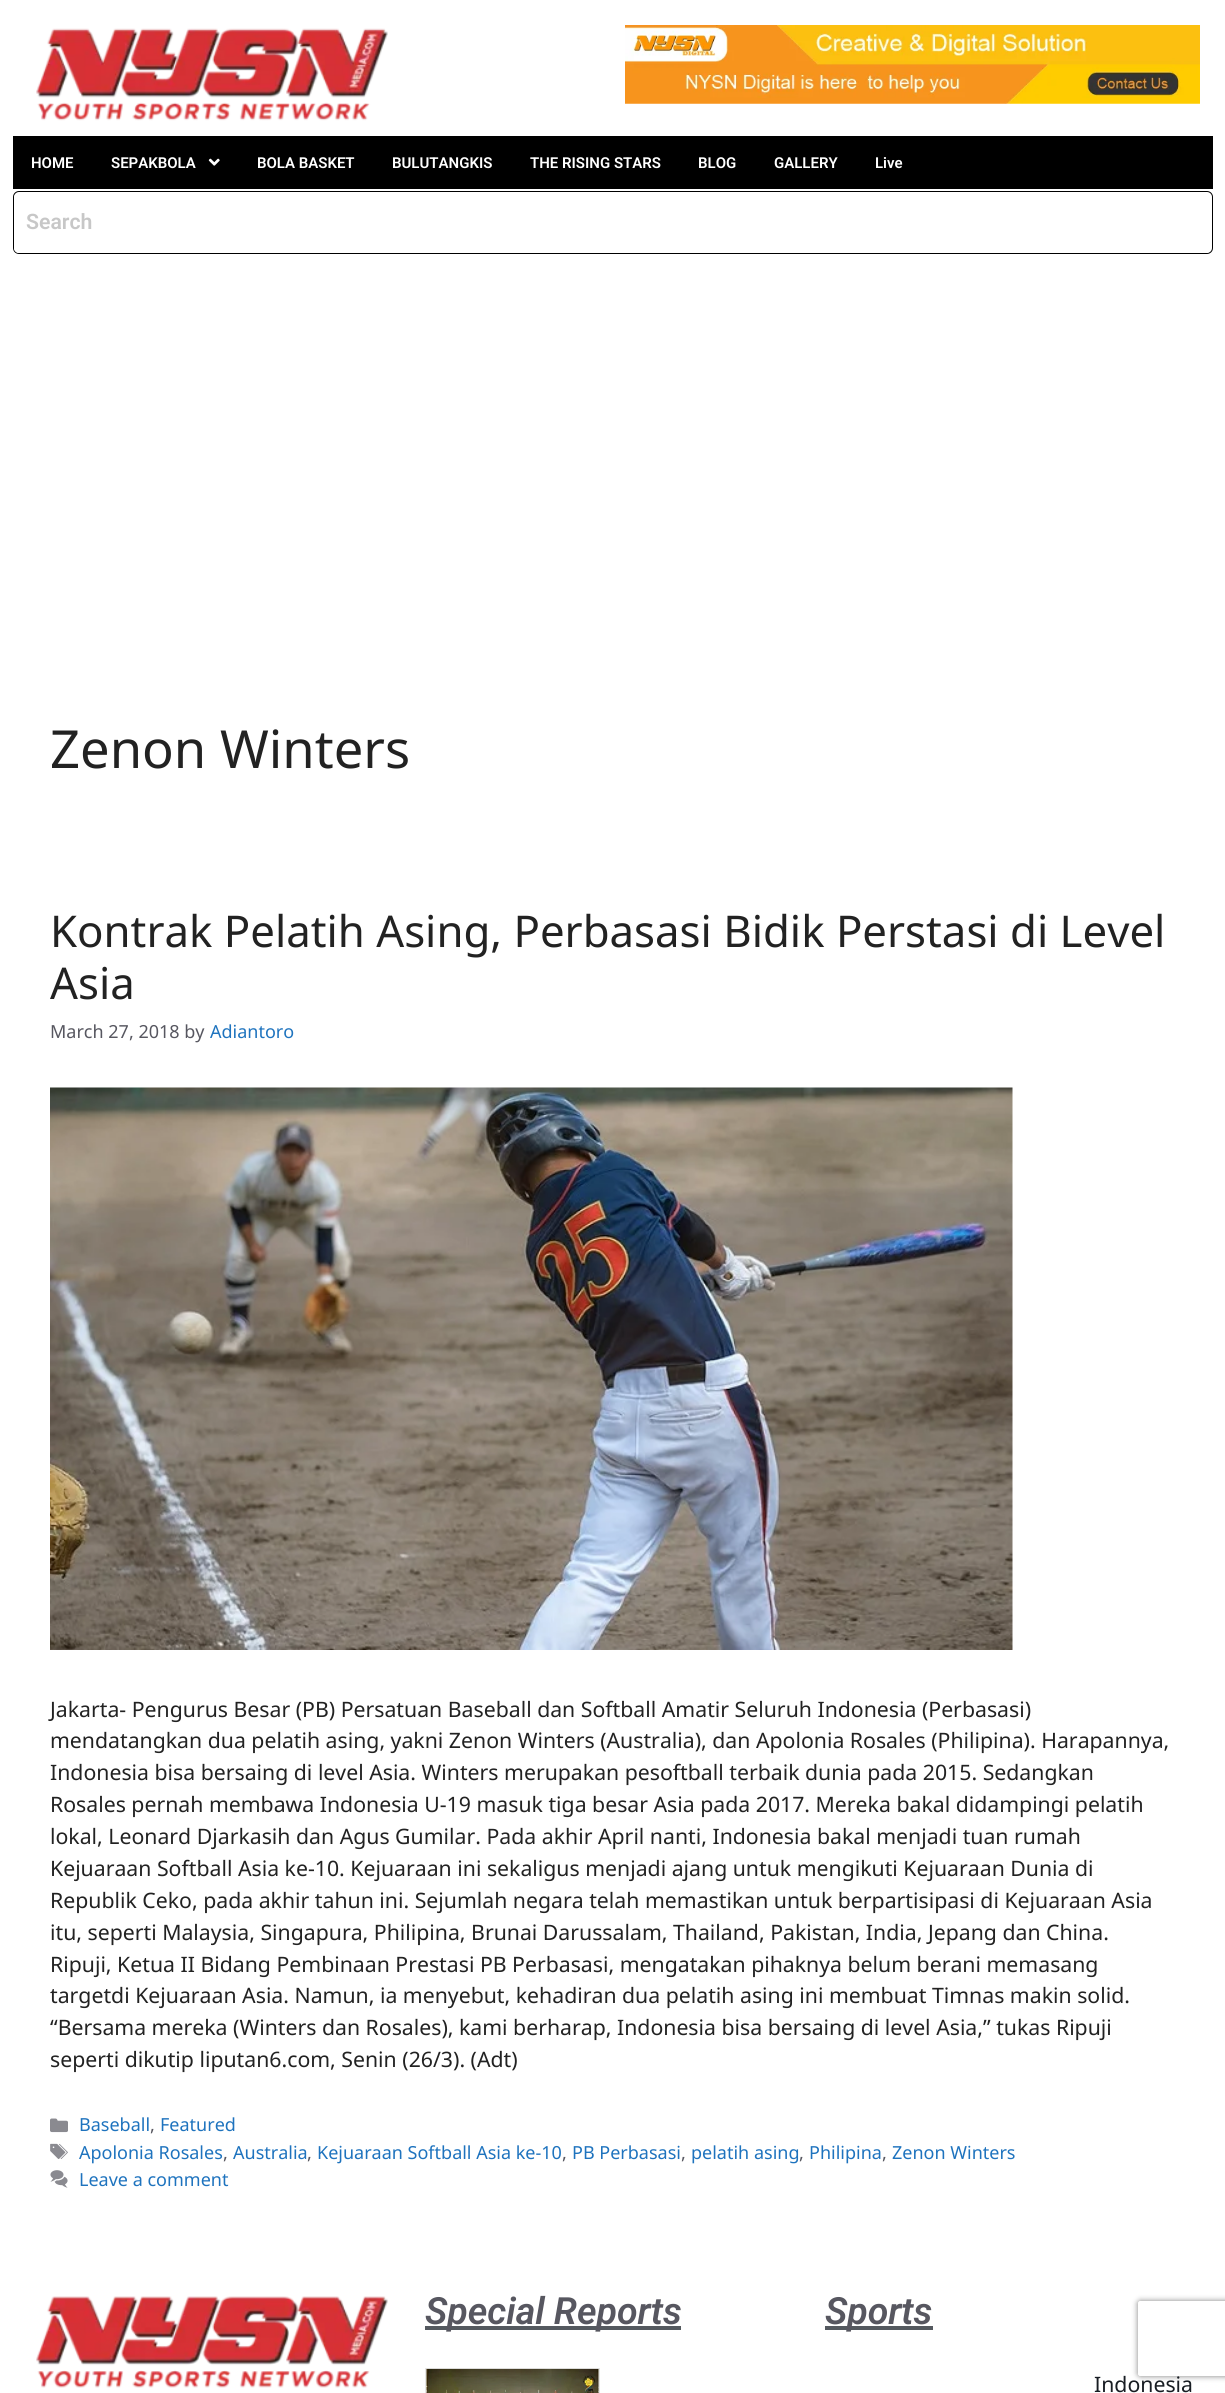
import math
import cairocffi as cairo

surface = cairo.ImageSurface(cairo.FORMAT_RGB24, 1225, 2393)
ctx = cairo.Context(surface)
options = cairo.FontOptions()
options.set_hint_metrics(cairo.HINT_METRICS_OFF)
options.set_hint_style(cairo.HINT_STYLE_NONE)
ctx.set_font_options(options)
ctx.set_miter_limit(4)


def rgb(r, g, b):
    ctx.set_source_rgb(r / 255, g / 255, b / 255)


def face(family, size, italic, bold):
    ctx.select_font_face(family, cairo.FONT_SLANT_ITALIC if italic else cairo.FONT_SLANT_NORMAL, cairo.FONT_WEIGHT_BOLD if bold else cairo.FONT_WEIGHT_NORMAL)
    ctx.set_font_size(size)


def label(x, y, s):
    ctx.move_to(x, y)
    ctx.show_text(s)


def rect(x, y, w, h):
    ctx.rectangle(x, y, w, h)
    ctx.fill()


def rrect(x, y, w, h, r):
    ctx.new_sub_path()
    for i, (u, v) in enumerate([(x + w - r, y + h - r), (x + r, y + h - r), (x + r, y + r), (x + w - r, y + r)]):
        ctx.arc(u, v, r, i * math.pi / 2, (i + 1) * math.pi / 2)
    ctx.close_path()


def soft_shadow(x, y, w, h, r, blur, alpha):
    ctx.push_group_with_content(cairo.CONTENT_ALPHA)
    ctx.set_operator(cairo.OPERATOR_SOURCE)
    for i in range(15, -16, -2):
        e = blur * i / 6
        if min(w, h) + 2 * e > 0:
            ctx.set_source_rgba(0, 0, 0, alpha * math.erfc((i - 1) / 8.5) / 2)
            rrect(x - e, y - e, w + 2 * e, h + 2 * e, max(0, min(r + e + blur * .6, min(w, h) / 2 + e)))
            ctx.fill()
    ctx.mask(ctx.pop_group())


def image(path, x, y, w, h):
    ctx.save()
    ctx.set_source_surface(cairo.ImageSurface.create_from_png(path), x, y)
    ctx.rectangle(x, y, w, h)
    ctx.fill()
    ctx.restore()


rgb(255, 255, 255)
ctx.paint()
image('image0.png', 36, 28, 352, 93)
image('image1.png', 625, 25, 575, 79)
rgb(0, 0, 0)
rect(13, 136, 1200, 53)
face('Roboto SemiBold', 15, 0, 0)
rgb(255, 255, 255)
label(31, 168, 'HOME')
label(111, 168, 'SEPAKBOLA')
image('image2.png', 208, 158, 12, 8)
label(257, 168, 'BOLA BASKET')
label(392, 168, 'BULUTANGKIS')
label(530, 168, 'THE RISING STARS')
label(698, 168, 'BLOG')
label(774, 168, 'GALLERY')
label(875, 168, 'Live')
rrect(13.5, 191.5, 1199, 62, 5.5)
rgb(0, 0, 0)
ctx.set_line_width(1)
ctx.stroke()
rgb(255, 255, 255)
rrect(14, 193, 1197, 60, 5)
ctx.fill()
face('Roboto SemiBold', 21.25, 0, 0)
rgb(199, 199, 199)
label(26, 229, 'Search')
face('Noto Sans', 52.5, 0, 0)
rgb(34, 34, 34)
label(50, 768, 'Zenon Winters')
face('Noto Sans', 43.75, 0, 0)
label(50, 947, 'Kontrak Pelatih Asing, Perbasasi Bidik Perstasi di Level')
label(50, 999, 'Asia')
face('Noto Sans', 18, 0, 0)
rgb(87, 87, 96)
label(50, 1038, 'March 27, 2018 by')
rgb(30, 115, 190)
label(210, 1038, 'Adiantoro')
image('image3.png', 50, 1087, 963, 563)
face('Noto Sans', 21.25, 0, 0)
rgb(34, 34, 34)
label(50, 1717, 'Jakarta- Pengurus Besar (PB) Persatuan Baseball dan Softball Amatir Seluruh Indonesia (Perbasasi)')
label(50, 1748, 'mendatangkan dua pelatih asing, yakni Zenon Winters (Australia), dan Apolonia Rosales (Philipina). Harapannya,')
label(50, 1780, 'Indonesia bisa bersaing di level Asia. Winters merupakan pesoftball terbaik dunia pada 2015. Sedangkan')
label(50, 1812, 'Rosales pernah membawa Indonesia U-19 masuk tiga besar Asia pada 2017. Mereka bakal didampingi pelatih')
label(50, 1844, 'lokal, Leonard Djarkasih dan Agus Gumilar. Pada akhir April nanti, Indonesia bakal menjadi tuan rumah')
label(50, 1876, 'Kejuaraan Softball Asia ke-10. Kejuaraan ini sekaligus menjadi ajang untuk mengikuti Kejuaraan Dunia di')
label(50, 1908, 'Republik Ceko, pada akhir tahun ini. Sejumlah negara telah memastikan untuk berpartisipasi di Kejuaraan Asia')
label(50, 1940, 'itu, seperti Malaysia, Singapura, Philipina, Brunai Darussalam, Thailand, Pakistan, India, Jepang dan China.')
label(50, 1972, 'Ripuji, Ketua II Bidang Pembinaan Prestasi PB Perbasasi, mengatakan pihaknya belum berani memasang')
label(50, 2003, 'targetdi Kejuaraan Asia. Namun, ia menyebut, kehadiran dua pelatih asing ini membuat Timnas makin solid.')
label(50, 2035, '“Bersama mereka (Winters dan Rosales), kami berharap, Indonesia bisa bersaing di level Asia,” tukas Ripuji')
label(50, 2067, 'seperti dikutip liputan6.com, Senin (26/3). (Adt)')
image('image4.png', 50, 2118, 18, 15)
face('Noto Sans', 18, 0, 0)
rgb(30, 115, 190)
label(79, 2131, 'Baseball')
rgb(87, 87, 96)
label(150, 2131, ',')
rgb(30, 115, 190)
label(160, 2131, 'Featured')
image('image5.png', 50, 2143, 18, 16)
label(79, 2159, 'Apolonia Rosales')
rgb(87, 87, 96)
label(223, 2159, ',')
rgb(30, 115, 190)
label(233, 2159, 'Australia')
rgb(87, 87, 96)
label(307, 2159, ',')
rgb(30, 115, 190)
label(317, 2159, 'Kejuaraan Softball Asia ke-10')
rgb(87, 87, 96)
label(562, 2159, ',')
rgb(30, 115, 190)
label(572, 2159, 'PB Perbasasi')
rgb(87, 87, 96)
label(681, 2159, ',')
rgb(30, 115, 190)
label(691, 2159, 'pelatih asing')
rgb(87, 87, 96)
label(799, 2159, ',')
rgb(30, 115, 190)
label(809, 2159, 'Philipina')
rgb(87, 87, 96)
label(882, 2159, ',')
rgb(30, 115, 190)
label(892, 2159, 'Zenon Winters')
image('image6.png', 50, 2170, 18, 18)
label(79, 2186, 'Leave a comment')
ctx.save()
ctx.set_fill_rule(cairo.FILL_RULE_EVEN_ODD)
ctx.new_path()
ctx.move_to(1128, 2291)
ctx.line_to(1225, 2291)
ctx.line_to(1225, 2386)
ctx.line_to(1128, 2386)
ctx.close_path()
ctx.move_to(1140.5, 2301)
ctx.line_to(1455.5, 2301)
ctx.curve_to(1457, 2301, 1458, 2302, 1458, 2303.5)
ctx.line_to(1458, 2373.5)
ctx.curve_to(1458, 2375, 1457, 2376, 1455.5, 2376)
ctx.line_to(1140.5, 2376)
ctx.curve_to(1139, 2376, 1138, 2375, 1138, 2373.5)
ctx.line_to(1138, 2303.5)
ctx.curve_to(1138, 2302, 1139, 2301, 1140.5, 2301)
ctx.close_path()
ctx.clip()
rgb(128, 128, 128)
soft_shadow(1138, 2301, 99, 75, 2.5, 3, 1)
ctx.restore()
image('image7.png', 36, 2296, 352, 92)
rgb(84, 89, 95)
rect(425, 2326, 256, 4)
face('Roboto SemiBold', 37.5, 1, 0)
rgb(87, 87, 96)
label(425, 2324, 'Special Reports')
ctx.rectangle(425.5, 2368.5, 174, 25)
rgb(230, 230, 230)
ctx.stroke()
image('image8.png', 426, 2368, 173, 25)
rgb(84, 89, 95)
rect(825, 2326, 108, 4)
rgb(87, 87, 96)
label(825, 2324, 'Sports')
face('Noto Sans', 21.25, 0, 0)
rgb(24, 29, 35)
label(1094, 2392, 'Indonesia')
surface.write_to_png('render.png')
